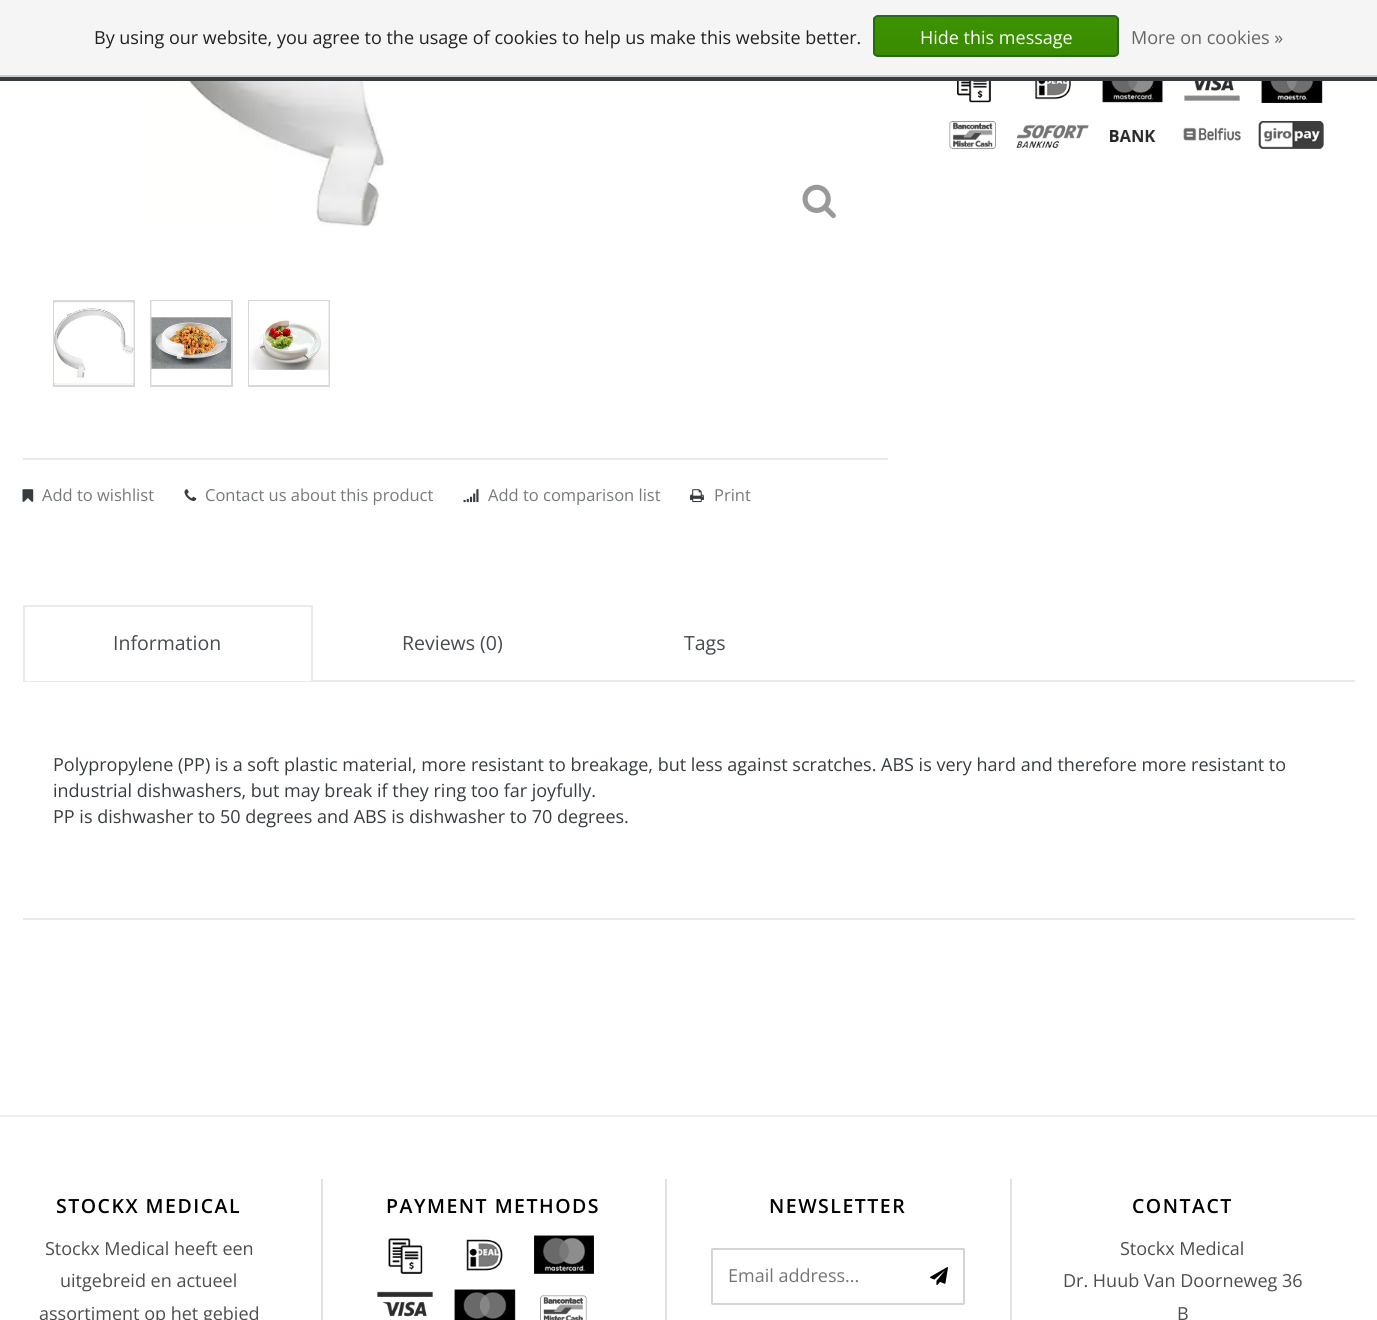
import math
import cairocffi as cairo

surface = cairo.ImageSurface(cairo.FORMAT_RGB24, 1377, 1320)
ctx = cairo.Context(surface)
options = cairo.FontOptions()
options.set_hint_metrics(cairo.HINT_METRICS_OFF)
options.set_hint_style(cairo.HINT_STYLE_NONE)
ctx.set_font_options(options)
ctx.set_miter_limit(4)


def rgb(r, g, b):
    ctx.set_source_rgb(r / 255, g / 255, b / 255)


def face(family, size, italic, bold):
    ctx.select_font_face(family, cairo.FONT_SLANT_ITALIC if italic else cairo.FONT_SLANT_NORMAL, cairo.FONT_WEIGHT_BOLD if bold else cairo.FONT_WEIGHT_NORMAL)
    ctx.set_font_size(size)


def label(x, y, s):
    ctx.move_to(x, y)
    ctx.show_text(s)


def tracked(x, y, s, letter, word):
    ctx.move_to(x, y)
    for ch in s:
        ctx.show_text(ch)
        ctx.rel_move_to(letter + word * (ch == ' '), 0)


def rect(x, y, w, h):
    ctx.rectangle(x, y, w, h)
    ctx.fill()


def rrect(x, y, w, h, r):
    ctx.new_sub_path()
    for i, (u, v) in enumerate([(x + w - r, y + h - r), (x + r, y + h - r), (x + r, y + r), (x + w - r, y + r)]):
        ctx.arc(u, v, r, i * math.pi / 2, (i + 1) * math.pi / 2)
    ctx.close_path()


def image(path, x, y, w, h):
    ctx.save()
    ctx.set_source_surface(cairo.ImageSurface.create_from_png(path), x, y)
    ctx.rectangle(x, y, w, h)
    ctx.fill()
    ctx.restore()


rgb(255, 255, 255)
ctx.paint()
rgb(245, 245, 245)
rect(0, 0, 1377, 75)
rgb(204, 204, 204)
rect(0, 75, 1377, 2)
face('Open Sans', 18, 0, 0)
rgb(34, 34, 34)
label(94, 44, 'By using our website, you agree to the usage of cookies to help us make this website better.')
ctx.save()
rrect(873, 15, 246, 42, 5)
ctx.clip()
gradient = cairo.LinearGradient(996, 16, 996, 56)
gradient.add_color_stop_rgba(0, 0.235, 0.576, 0, 1)
gradient.add_color_stop_rgba(1, 0.224, 0.541, 0, 1)
ctx.set_source(gradient)
rect(873, 17, 246, 39)
ctx.restore()
rrect(874, 16, 244, 40, 4)
rgb(41, 105, 29)
ctx.stroke()
rgb(255, 255, 255)
label(920, 44, 'Hide this message')
rgb(102, 102, 102)
label(1131, 44, 'More on cookies »')
rgb(54, 60, 63)
rect(0, 77, 1377, 4)
image('image0.png', 957, 81, 34, 22)
image('image1.png', 1035, 81, 36, 20)
image('image2.png', 1102, 81, 61, 22)
image('image3.png', 1184, 81, 56, 20)
image('image4.png', 1261, 81, 62, 22)
image('image5.png', 949, 121, 47, 28)
image('image6.png', 1016, 124, 73, 24)
image('image7.png', 1110, 130, 46, 12)
image('image8.png', 1183, 127, 58, 14)
image('image9.png', 1258, 121, 66, 28)
image('image10.png', 148, 81, 630, 146)
image('image11.png', 802, 184, 34, 35)
rgb(247, 247, 247)
ctx.rectangle(54, 301, 80, 85)
ctx.fill_preserve()
rgb(216, 216, 216)
ctx.stroke()
image('image12.png', 54, 303, 80, 80)
ctx.rectangle(151, 301, 81, 85)
ctx.stroke()
image('image13.png', 151, 301, 80, 84)
ctx.rectangle(249, 301, 80, 85)
ctx.stroke()
image('image14.png', 249, 301, 80, 84)
rgb(234, 234, 234)
rect(23, 458, 865, 2)
image('image15.png', 22, 489, 12, 13)
face('Open Sans', 16.5, 0, 0)
rgb(117, 122, 124)
label(42, 501, 'Add to wishlist')
image('image16.png', 184, 489, 13, 12)
label(205, 501, 'Contact us about this product')
image('image17.png', 463, 489, 16, 14)
label(488, 501, 'Add to comparison list')
image('image18.png', 690, 489, 14, 14)
label(714, 501, 'Print')
rgb(234, 234, 234)
rect(23, 680, 1332, 2)
rgb(255, 255, 255)
rect(25, 680, 286, 1)
rgb(234, 234, 234)
rect(23, 605, 289, 2)
rect(311, 605, 2, 76)
rect(23, 605, 2, 76)
face('Open Sans', 19.5, 0, 0)
rgb(70, 75, 78)
label(113, 650, 'Information')
label(402, 650, 'Reviews (0)')
label(684, 650, 'Tags')
rgb(234, 234, 234)
rect(23, 918, 1332, 2)
face('Open Sans', 18, 0, 0)
rgb(54, 60, 63)
label(53, 771, 'Polypropylene (PP) is a soft plastic material, more resistant to breakage, but less against scratches. ABS is very hard and therefore more resistant to')
label(53, 797, 'industrial dishwashers, but may break if they ring too far joyfully.')
label(53, 823, 'PP is dishwasher to 50 degrees and ABS is dishwasher to 70 degrees.')
rgb(238, 238, 238)
rect(0, 1115, 1377, 2)
rgb(225, 225, 225)
rect(321, 1179, 2, 141)
face('Open Sans SemiBold', 19.5, 0, 0)
rgb(0, 0, 0)
tracked(56, 1213, 'STOCKX MEDICAL', 1.5, 0)
face('Open Sans', 18, 0, 0)
rgb(77, 77, 77)
label(45, 1255, 'Stockx Medical heeft een')
label(60, 1287, 'uitgebreid en actueel')
label(39, 1320, 'assortiment op het gebied')
rgb(225, 225, 225)
rect(665, 1179, 2, 141)
face('Open Sans SemiBold', 19.5, 0, 0)
rgb(0, 0, 0)
tracked(386, 1213, 'PAYMENT METHODS', 1.5, 0)
image('image19.png', 388, 1238, 35, 36)
image('image20.png', 466, 1237, 38, 36)
image('image21.png', 534, 1235, 60, 39)
image('image22.png', 377, 1291, 56, 26)
image('image23.png', 454, 1289, 62, 31)
image('image24.png', 540, 1295, 47, 25)
rgb(225, 225, 225)
rect(1010, 1179, 2, 141)
rgb(0, 0, 0)
tracked(769, 1213, 'NEWSLETTER', 1.5, 0)
rrect(712, 1249, 252, 55, 0.5)
rgb(212, 212, 212)
ctx.stroke()
face('Open Sans', 18, 0, 0)
rgb(117, 117, 117)
label(728, 1282, 'Email address...')
image('image25.png', 930, 1267, 18, 18)
face('Open Sans SemiBold', 19.5, 0, 0)
rgb(0, 0, 0)
tracked(1132, 1213, 'CONTACT', 1.5, 0)
face('Open Sans', 18, 0, 0)
rgb(77, 77, 77)
label(1120, 1255, 'Stockx Medical')
label(1063, 1287, 'Dr. Huub Van Doorneweg 36')
label(1177, 1320, 'B')
surface.write_to_png('render.png')
